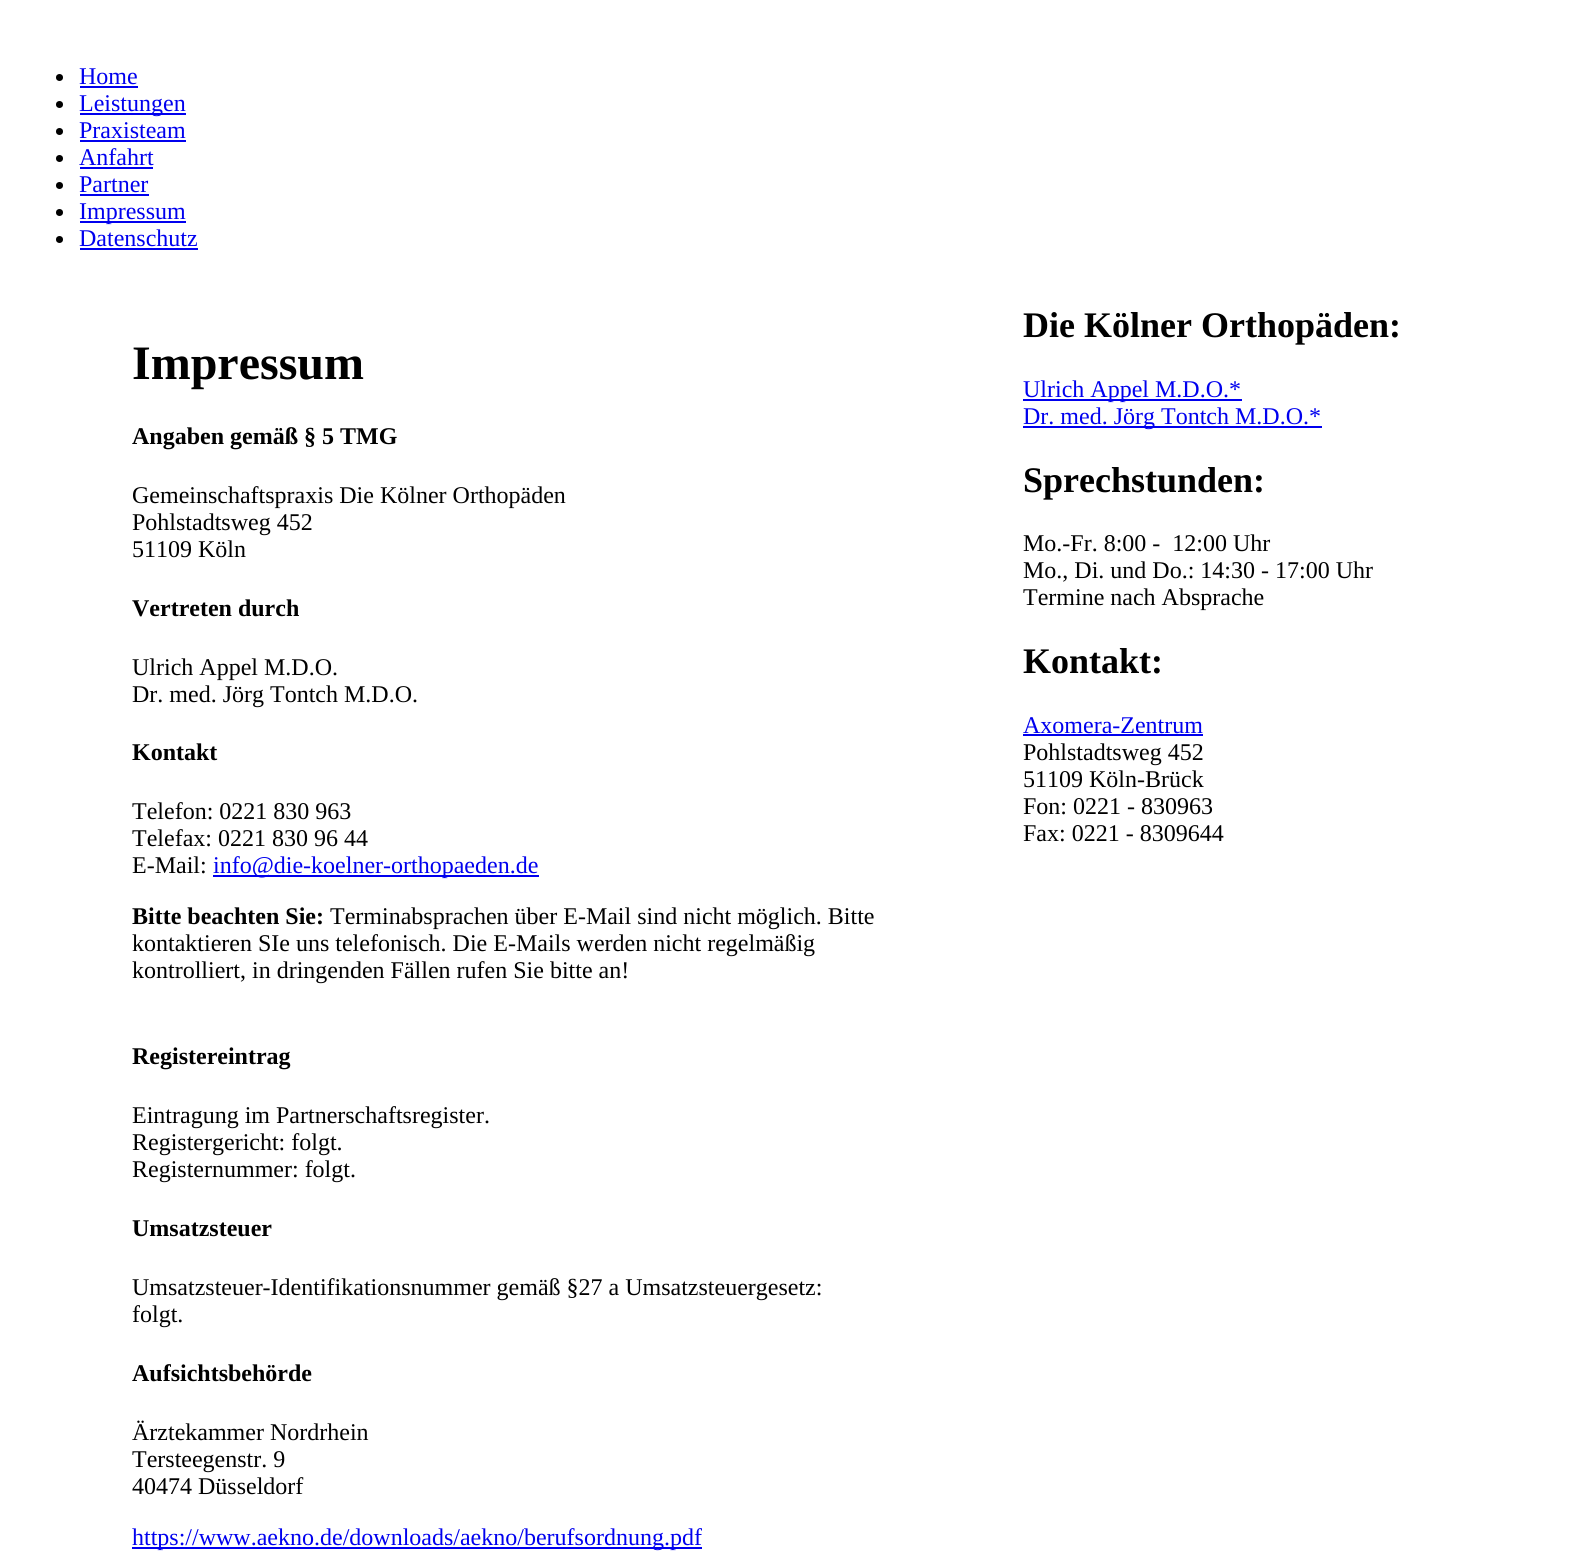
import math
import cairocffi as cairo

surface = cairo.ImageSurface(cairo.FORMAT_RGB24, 1573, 1561)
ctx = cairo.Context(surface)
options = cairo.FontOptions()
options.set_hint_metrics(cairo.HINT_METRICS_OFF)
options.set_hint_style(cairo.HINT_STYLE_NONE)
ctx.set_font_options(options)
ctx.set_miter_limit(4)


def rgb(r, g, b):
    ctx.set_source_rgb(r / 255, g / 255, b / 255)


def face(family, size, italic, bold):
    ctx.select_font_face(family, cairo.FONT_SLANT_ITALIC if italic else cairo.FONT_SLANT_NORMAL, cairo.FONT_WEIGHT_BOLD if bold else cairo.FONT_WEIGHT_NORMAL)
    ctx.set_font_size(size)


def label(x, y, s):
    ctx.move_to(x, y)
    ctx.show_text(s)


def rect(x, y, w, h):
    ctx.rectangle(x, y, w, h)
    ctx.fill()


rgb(255, 255, 255)
ctx.paint()
rgb(0, 0, 0)
ctx.arc(59.5, 77.5, 3.5, 0, 2 * math.pi)
ctx.fill()
face('Liberation Serif', 24, 0, 0)
rgb(0, 0, 238)
label(79, 84, 'Home')
rect(80, 86, 58, 2)
rgb(0, 0, 0)
ctx.new_path()
ctx.arc(59.5, 104.5, 3.5, 0, 2 * math.pi)
ctx.fill()
rgb(0, 0, 238)
rect(80, 113, 106, 2)
label(79, 111, 'Leistungen')
rgb(0, 0, 0)
ctx.new_path()
ctx.arc(59.5, 131.5, 3.5, 0, 2 * math.pi)
ctx.fill()
rgb(0, 0, 238)
label(79, 138, 'Praxisteam')
rect(80, 140, 106, 2)
rgb(0, 0, 0)
ctx.new_path()
ctx.arc(59.5, 158.5, 3.5, 0, 2 * math.pi)
ctx.fill()
rgb(0, 0, 238)
label(79, 165, 'Anfahrt')
rect(80, 167, 73, 2)
rgb(0, 0, 0)
ctx.new_path()
ctx.arc(59.5, 185.5, 3.5, 0, 2 * math.pi)
ctx.fill()
rgb(0, 0, 238)
label(79, 192, 'Partner')
rect(80, 194, 69, 2)
rgb(0, 0, 0)
ctx.new_path()
ctx.arc(59.5, 212.5, 3.5, 0, 2 * math.pi)
ctx.fill()
rgb(0, 0, 238)
rect(80, 221, 106, 2)
label(79, 219, 'Impressum')
rgb(0, 0, 0)
ctx.new_path()
ctx.arc(59.5, 239.5, 3.5, 0, 2 * math.pi)
ctx.fill()
rgb(0, 0, 238)
label(79, 246, 'Datenschutz')
rect(80, 248, 118, 2)
face('Liberation Serif', 48, 0, 1)
rgb(0, 0, 0)
label(132, 379, 'Impressum')
face('Liberation Serif', 24, 0, 1)
label(132, 444, 'Angaben gemäß § 5 TMG')
face('Liberation Serif', 24, 0, 0)
label(132, 503, 'Gemeinschaftspraxis Die Kölner Orthopäden')
label(132, 530, 'Pohlstadtsweg 452')
label(132, 557, '51109 Köln')
face('Liberation Serif', 24, 0, 1)
label(132, 616, 'Vertreten durch')
face('Liberation Serif', 24, 0, 0)
label(132, 675, 'Ulrich Appel M.D.O.')
label(132, 702, 'Dr. med. Jörg Tontch M.D.O.')
face('Liberation Serif', 24, 0, 1)
label(132, 760, 'Kontakt')
face('Liberation Serif', 24, 0, 0)
label(132, 819, 'Telefon: 0221 830 963')
label(132, 846, 'Telefax: 0221 830 96 44')
label(132, 873, 'E-Mail:')
rgb(0, 0, 238)
rect(213, 875, 326, 2)
label(213, 873, 'info@die-koelner-orthopaeden.de')
face('Liberation Serif', 24, 0, 1)
rgb(0, 0, 0)
label(132, 924, 'Bitte beachten Sie:')
face('Liberation Serif', 24, 0, 0)
label(330, 924, 'Terminabsprachen über E-Mail sind nicht möglich. Bitte')
label(132, 951, 'kontaktieren SIe uns telefonisch. Die E-Mails werden nicht regelmäßig')
label(132, 978, 'kontrolliert, in dringenden Fällen rufen Sie bitte an!')
face('Liberation Serif', 24, 0, 1)
label(132, 1064, 'Registereintrag')
face('Liberation Serif', 24, 0, 0)
label(132, 1123, 'Eintragung im Partnerschaftsregister.')
label(132, 1150, 'Registergericht: folgt.')
label(132, 1177, 'Registernummer: folgt.')
face('Liberation Serif', 24, 0, 1)
label(132, 1236, 'Umsatzsteuer')
face('Liberation Serif', 24, 0, 0)
label(132, 1295, 'Umsatzsteuer-Identifikationsnummer gemäß §27 a Umsatzsteuergesetz:')
label(132, 1322, 'folgt.')
face('Liberation Serif', 24, 0, 1)
label(132, 1381, 'Aufsichtsbehörde')
face('Liberation Serif', 24, 0, 0)
label(132, 1440, 'Ärztekammer Nordrhein')
label(132, 1467, 'Tersteegenstr. 9')
label(132, 1494, '40474 Düsseldorf')
rgb(0, 0, 238)
rect(132, 1547, 570, 2)
label(132, 1545, 'https://www.aekno.de/downloads/aekno/berufsordnung.pdf')
face('Liberation Serif', 36, 0, 1)
rgb(0, 0, 0)
label(1023, 337, 'Die Kölner Orthopäden:')
rgb(0, 0, 238)
rect(1023, 399, 219, 2)
face('Liberation Serif', 24, 0, 0)
label(1023, 397, 'Ulrich Appel M.D.O.*')
rect(1023, 426, 299, 2)
label(1023, 424, 'Dr. med. Jörg Tontch M.D.O.*')
face('Liberation Serif', 36, 0, 1)
rgb(0, 0, 0)
label(1023, 492, 'Sprechstunden:')
face('Liberation Serif', 24, 0, 0)
label(1023, 551, 'Mo.-Fr. 8:00 -  12:00 Uhr')
label(1023, 578, 'Mo., Di. und Do.: 14:30 - 17:00 Uhr')
label(1023, 605, 'Termine nach Absprache')
face('Liberation Serif', 36, 0, 1)
label(1023, 673, 'Kontakt:')
face('Liberation Serif', 24, 0, 0)
rgb(0, 0, 238)
label(1023, 733, 'Axomera-Zentrum')
rect(1023, 734, 180, 2)
rgb(0, 0, 0)
label(1023, 760, 'Pohlstadtsweg 452')
label(1023, 787, '51109 Köln-Brück')
label(1023, 814, 'Fon: 0221 - 830963')
label(1023, 841, 'Fax: 0221 - 8309644')
surface.write_to_png('render.png')
